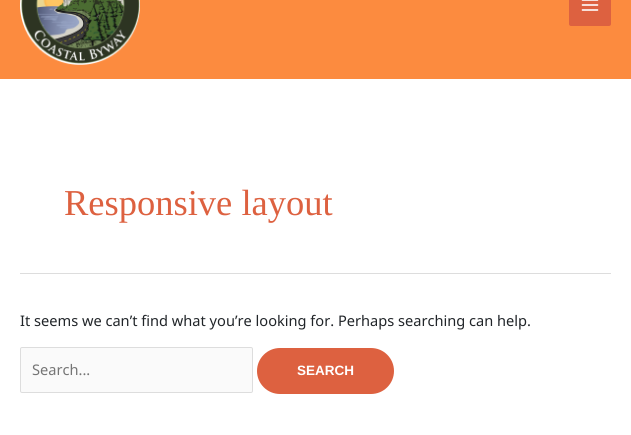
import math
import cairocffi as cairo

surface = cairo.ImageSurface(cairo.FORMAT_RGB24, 631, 435)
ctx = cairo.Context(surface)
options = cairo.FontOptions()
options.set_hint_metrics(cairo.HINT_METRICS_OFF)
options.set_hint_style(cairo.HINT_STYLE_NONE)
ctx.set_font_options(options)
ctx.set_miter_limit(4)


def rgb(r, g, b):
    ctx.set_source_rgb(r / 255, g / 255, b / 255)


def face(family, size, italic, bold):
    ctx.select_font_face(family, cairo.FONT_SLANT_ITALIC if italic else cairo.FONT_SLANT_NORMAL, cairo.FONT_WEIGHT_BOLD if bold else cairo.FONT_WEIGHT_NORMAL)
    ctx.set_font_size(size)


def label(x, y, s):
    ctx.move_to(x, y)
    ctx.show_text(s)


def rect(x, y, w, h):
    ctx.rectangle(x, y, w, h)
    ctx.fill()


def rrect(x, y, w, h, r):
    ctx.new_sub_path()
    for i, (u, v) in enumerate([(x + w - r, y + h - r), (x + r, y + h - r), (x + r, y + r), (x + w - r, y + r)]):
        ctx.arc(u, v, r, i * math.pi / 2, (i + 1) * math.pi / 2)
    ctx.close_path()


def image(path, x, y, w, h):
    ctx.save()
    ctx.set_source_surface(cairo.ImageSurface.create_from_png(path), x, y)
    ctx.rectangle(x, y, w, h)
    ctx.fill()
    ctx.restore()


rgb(255, 255, 255)
ctx.paint()
rgb(252, 139, 63)
rect(0, 0, 631, 79)
image('image0.png', 20, 0, 120, 65)
rgb(221, 97, 64)
rrect(569, -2, 42, 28, 2)
ctx.fill()
image('image1.png', 581, 0, 18, 11)
rgb(221, 221, 221)
rect(20, 273, 591, 1)
face('Liberation Serif', 36.5, 0, 0)
rgb(221, 97, 64)
label(64, 215, 'Responsive layout')
face('Noto Sans', 14.6, 0, 0)
rgb(33, 37, 41)
label(20, 326, 'It seems we can’t find what you’re looking for. Perhaps searching can help.')
rgb(250, 250, 250)
rrect(20.5, 347.5, 232, 45, 1.5)
ctx.fill_preserve()
rgb(221, 221, 221)
ctx.set_line_width(1)
ctx.stroke()
rgb(117, 117, 117)
label(32, 375, 'Search...')
rgb(221, 97, 64)
rrect(257, 348, 137, 46, 23)
ctx.fill()
face('Liberation Sans', 13.5, 0, 1)
rgb(255, 255, 255)
label(297, 375, 'SEARCH')
surface.write_to_png('render.png')
